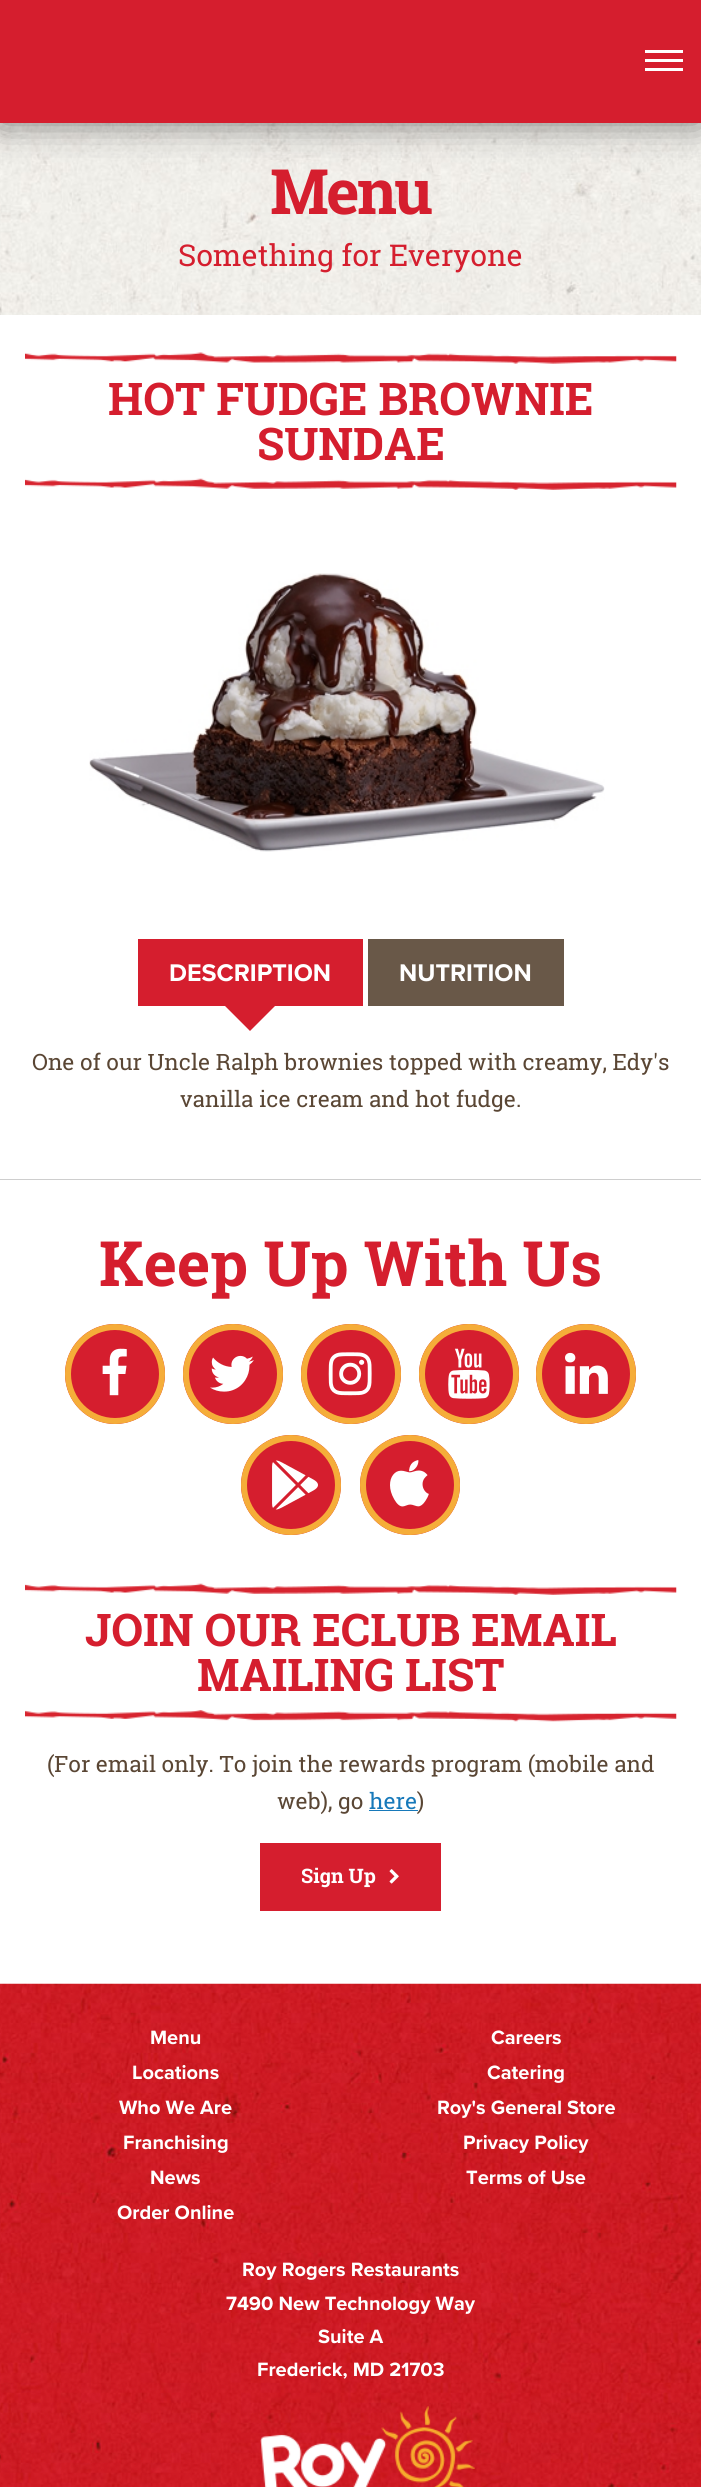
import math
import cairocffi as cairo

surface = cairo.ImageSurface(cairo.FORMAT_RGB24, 701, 2487)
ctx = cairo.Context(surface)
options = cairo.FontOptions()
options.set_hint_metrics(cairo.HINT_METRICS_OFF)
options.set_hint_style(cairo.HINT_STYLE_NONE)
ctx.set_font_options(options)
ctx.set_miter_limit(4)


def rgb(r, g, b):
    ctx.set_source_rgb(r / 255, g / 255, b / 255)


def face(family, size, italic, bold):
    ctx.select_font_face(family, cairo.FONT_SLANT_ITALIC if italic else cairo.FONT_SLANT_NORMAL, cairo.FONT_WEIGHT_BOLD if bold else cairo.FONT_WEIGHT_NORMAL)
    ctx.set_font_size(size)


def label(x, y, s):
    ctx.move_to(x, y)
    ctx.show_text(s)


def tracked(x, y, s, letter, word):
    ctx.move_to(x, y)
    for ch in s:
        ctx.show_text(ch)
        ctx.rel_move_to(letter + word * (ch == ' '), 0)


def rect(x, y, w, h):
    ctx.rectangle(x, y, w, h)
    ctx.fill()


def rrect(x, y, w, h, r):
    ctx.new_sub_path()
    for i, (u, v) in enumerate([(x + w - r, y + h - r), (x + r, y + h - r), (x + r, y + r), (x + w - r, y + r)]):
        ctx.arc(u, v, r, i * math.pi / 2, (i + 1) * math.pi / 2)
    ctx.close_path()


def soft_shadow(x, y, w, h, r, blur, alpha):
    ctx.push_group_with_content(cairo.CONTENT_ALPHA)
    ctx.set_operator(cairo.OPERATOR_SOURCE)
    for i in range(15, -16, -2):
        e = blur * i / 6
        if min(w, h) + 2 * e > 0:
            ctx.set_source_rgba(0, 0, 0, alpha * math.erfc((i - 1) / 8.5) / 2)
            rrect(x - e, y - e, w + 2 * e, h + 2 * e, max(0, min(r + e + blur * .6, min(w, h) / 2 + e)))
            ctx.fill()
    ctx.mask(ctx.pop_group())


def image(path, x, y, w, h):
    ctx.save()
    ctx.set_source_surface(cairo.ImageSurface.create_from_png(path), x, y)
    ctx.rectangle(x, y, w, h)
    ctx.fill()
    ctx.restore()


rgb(255, 255, 255)
ctx.paint()
image('image0.png', 0, 123, 701, 192)
rgb(0, 0, 0)
soft_shadow(0, 0, 701, 123, 0, 19, 0.5)
rgb(213, 30, 46)
rect(0, 0, 701, 123)
rgb(255, 255, 255)
rect(645, 68, 38, 3)
rect(645, 59, 38, 3)
rect(645, 50, 38, 3)
face('Roboto Slab', 62.5, 0, 1)
rgb(213, 30, 46)
tracked(270, 214, 'Menu', -2.5, 0)
face('Roboto Slab', 30, 0, 0)
label(178, 266, 'Something for Everyone')
image('image1.png', 25, 352, 652, 12)
face('Roboto Slab', 45, 0, 1)
label(108, 415, 'HOT FUDGE BROWNIE')
label(257, 460, 'SUNDAE')
image('image2.png', 25, 478, 652, 12)
image('image3.png', 89, 573, 516, 279)
rect(138, 939, 225, 67)
face('Proxima Nova', 25, 0, 1)
rgb(255, 255, 255)
label(169, 981, 'DESCRIPTION')
rgb(213, 30, 46)
ctx.new_path()
ctx.move_to(225, 1006)
ctx.line_to(275, 1006)
ctx.line_to(250, 1031)
ctx.close_path()
ctx.fill()
rgb(105, 88, 72)
rect(368, 939, 196, 67)
rgb(255, 255, 255)
label(399, 981, 'NUTRITION')
face('Roboto Slab', 22.5, 0, 0)
rgb(90, 70, 52)
label(32, 1070, 'One of our Uncle Ralph brownies topped with creamy, Edy\'s')
label(180, 1107, 'vanilla ice cream and hot fudge.')
rgb(206, 206, 206)
rect(0, 1179, 701, 1)
face('Roboto Slab', 62.5, 0, 1)
rgb(213, 30, 46)
label(99, 1286, 'Keep Up With Us')
ctx.new_path()
ctx.arc(115, 1374, 50, 0, 2 * math.pi)
ctx.fill()
image('image4.png', 102, 1348, 25, 48)
ctx.arc(115, 1374, 47, 0, 2 * math.pi)
rgb(245, 173, 57)
ctx.set_line_width(6)
ctx.stroke()
rgb(213, 30, 46)
ctx.arc(233, 1374, 50, 0, 2 * math.pi)
ctx.fill()
image('image5.png', 210, 1355, 44, 37)
ctx.arc(233, 1374, 47, 0, 2 * math.pi)
rgb(245, 173, 57)
ctx.stroke()
rgb(213, 30, 46)
ctx.arc(351, 1374, 50, 0, 2 * math.pi)
ctx.fill()
image('image6.png', 328, 1352, 44, 44)
ctx.arc(351, 1374, 47, 0, 2 * math.pi)
rgb(245, 173, 57)
ctx.stroke()
rgb(213, 30, 46)
ctx.arc(469, 1374, 50, 0, 2 * math.pi)
ctx.fill()
image('image7.png', 448, 1348, 42, 51)
ctx.arc(469, 1374, 47, 0, 2 * math.pi)
rgb(245, 173, 57)
ctx.stroke()
rgb(213, 30, 46)
ctx.arc(586, 1374, 50, 0, 2 * math.pi)
ctx.fill()
image('image8.png', 565, 1352, 43, 42)
ctx.arc(586, 1374, 47, 0, 2 * math.pi)
rgb(245, 173, 57)
ctx.stroke()
rgb(213, 30, 46)
ctx.arc(291, 1485, 50, 0, 2 * math.pi)
ctx.fill()
image('image9.png', 272, 1460, 46, 50)
ctx.arc(291, 1485, 47, 0, 2 * math.pi)
rgb(245, 173, 57)
ctx.stroke()
rgb(213, 30, 46)
ctx.arc(410, 1485, 50, 0, 2 * math.pi)
ctx.fill()
image('image10.png', 390, 1460, 39, 47)
ctx.arc(410, 1485, 47, 0, 2 * math.pi)
rgb(245, 173, 57)
ctx.stroke()
image('image2.png', 25, 1583, 652, 12)
face('Roboto Slab', 45, 0, 1)
rgb(213, 30, 46)
label(85, 1646, 'JOIN OUR ECLUB EMAIL')
label(197, 1691, 'MAILING LIST')
image('image11.png', 25, 1710, 652, 12)
face('Roboto Slab', 22.5, 0, 0)
rgb(90, 70, 52)
label(47, 1772, '(For email only. To join the rewards program (mobile and')
label(277, 1809, 'web), go')
rgb(23, 121, 186)
label(369, 1809, 'here')
rect(369, 1810, 49, 1)
rgb(90, 70, 52)
label(417, 1809, ')')
rgb(213, 30, 46)
rect(260, 1843, 181, 68)
face('Roboto Slab', 20, 0, 1)
rgb(255, 255, 255)
label(301, 1883, 'Sign Up')
image('image12.png', 389, 1869, 10, 15)
image('image13.png', 0, 1983, 701, 504)
face('Proxima Nova', 20, 0, 1)
label(150, 2044, 'Menu')
label(132, 2079, 'Locations')
label(119, 2114, 'Who We Are')
label(123, 2149, 'Franchising')
label(150, 2184, 'News')
label(117, 2219, 'Order Online')
label(491, 2044, 'Careers')
label(487, 2079, 'Catering')
label(437, 2114, 'Roy\'s General Store')
label(463, 2149, 'Privacy Policy')
label(466, 2184, 'Terms of Use')
label(242, 2276, 'Roy Rogers Restaurants')
label(226, 2310, '7490 New Technology Way')
label(318, 2343, 'Suite A')
label(257, 2376, 'Frederick, MD 21703')
image('image14.png', 260, 2406, 215, 81)
surface.write_to_png('render.png')
